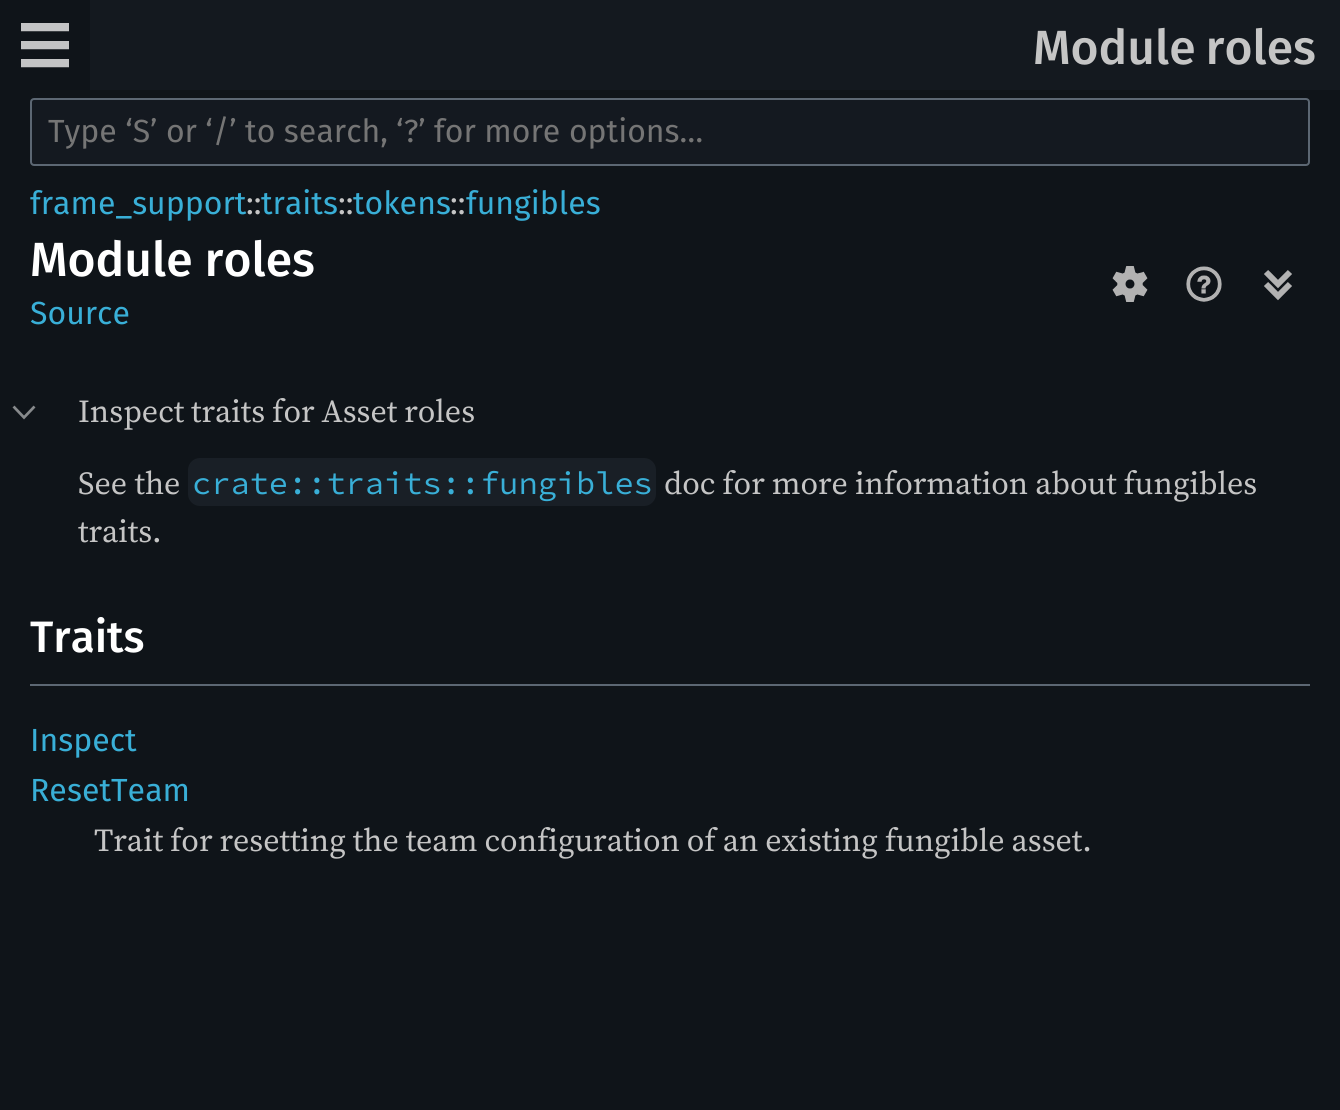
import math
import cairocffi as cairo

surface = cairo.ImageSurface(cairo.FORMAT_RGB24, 1340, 1110)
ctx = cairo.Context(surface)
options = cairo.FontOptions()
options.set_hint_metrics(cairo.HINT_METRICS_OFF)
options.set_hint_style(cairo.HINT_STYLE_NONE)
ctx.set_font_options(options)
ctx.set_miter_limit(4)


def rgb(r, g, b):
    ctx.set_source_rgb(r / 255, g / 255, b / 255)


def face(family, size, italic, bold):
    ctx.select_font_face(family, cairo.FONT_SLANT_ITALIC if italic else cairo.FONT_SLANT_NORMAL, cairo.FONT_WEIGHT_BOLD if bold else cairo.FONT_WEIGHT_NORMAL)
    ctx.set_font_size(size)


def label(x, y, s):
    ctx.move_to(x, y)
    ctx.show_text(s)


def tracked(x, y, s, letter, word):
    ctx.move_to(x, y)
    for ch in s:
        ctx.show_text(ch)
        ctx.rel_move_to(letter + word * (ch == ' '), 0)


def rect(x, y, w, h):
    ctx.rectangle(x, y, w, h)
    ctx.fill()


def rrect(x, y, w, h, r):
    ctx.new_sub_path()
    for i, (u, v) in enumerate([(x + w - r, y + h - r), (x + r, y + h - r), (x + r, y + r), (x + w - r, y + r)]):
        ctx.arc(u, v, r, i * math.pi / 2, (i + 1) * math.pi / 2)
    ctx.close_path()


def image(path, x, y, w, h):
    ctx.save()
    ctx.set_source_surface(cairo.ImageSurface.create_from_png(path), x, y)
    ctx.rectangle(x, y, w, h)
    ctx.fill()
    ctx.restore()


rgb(15, 20, 25)
ctx.paint()
rgb(20, 25, 31)
rect(90, 0, 1250, 90)
image('image0.png', 21, 23, 48, 45)
face('Fira Sans Medium', 48, 0, 0)
rgb(197, 197, 197)
tracked(1033, 64, 'Module roles', 0, -2)
rgb(20, 25, 32)
rrect(31, 99, 1278, 66, 3)
ctx.fill_preserve()
rgb(92, 103, 115)
ctx.stroke()
face('Fira Sans', 32, 0, 0)
rgb(117, 117, 117)
label(48, 142, 'Type ‘S’ or ‘/’ to search, ‘?’ for more options…')
rgb(57, 175, 215)
label(30, 214, 'frame_support')
rgb(197, 197, 197)
label(246, 214, '::')
rgb(57, 175, 215)
label(261, 214, 'traits')
rgb(197, 197, 197)
label(338, 214, '::')
rgb(57, 175, 215)
label(353, 214, 'tokens')
rgb(197, 197, 197)
label(450, 214, '::')
rgb(57, 175, 215)
label(466, 214, 'fungibles')
face('Fira Sans Medium', 48, 0, 0)
rgb(255, 255, 255)
label(30, 276, 'Module roles')
image('image1.png', 1112, 266, 36, 36)
image('image2.png', 1186, 266, 36, 36)
image('image3.png', 1264, 270, 28, 31)
face('Fira Sans', 32, 0, 0)
rgb(57, 175, 215)
label(30, 324, 'Source')
ctx.new_path()
ctx.move_to(13.5, 406.5)
ctx.line_to(24, 417.5)
ctx.line_to(34.5, 406.5)
rgb(135, 138, 140)
ctx.set_line_width(2.7)
ctx.stroke()
face('Source Serif 4', 32, 0, 0)
rgb(197, 197, 197)
tracked(78, 422, 'Inspect traits for Asset roles', 0, -0.5)
label(78, 494, 'See the')
rgb(25, 31, 38)
rrect(188, 458, 468, 48, 12)
ctx.fill()
face('Source Code Pro', 32, 0, 0)
rgb(57, 175, 215)
label(192, 494, 'crate::traits::fungibles')
face('Source Serif 4', 32, 0, 0)
rgb(197, 197, 197)
tracked(664, 494, 'doc for more information about fungibles', 0, -0.5)
label(78, 542, 'traits.')
rgb(92, 103, 115)
rect(30, 684, 1280, 2)
face('Fira Sans Medium', 44, 0, 0)
rgb(255, 255, 255)
label(30, 652, 'Traits')
face('Fira Sans', 32, 0, 0)
rgb(57, 175, 215)
label(30, 751, 'Inspect')
label(30, 801, 'Reset')
label(111, 801, 'Team')
face('Source Serif 4', 32, 0, 0)
rgb(197, 197, 197)
tracked(94, 851, 'Trait for resetting the team configuration of an existing fungible asset.', 0, -0.5)
surface.write_to_png('render.png')
